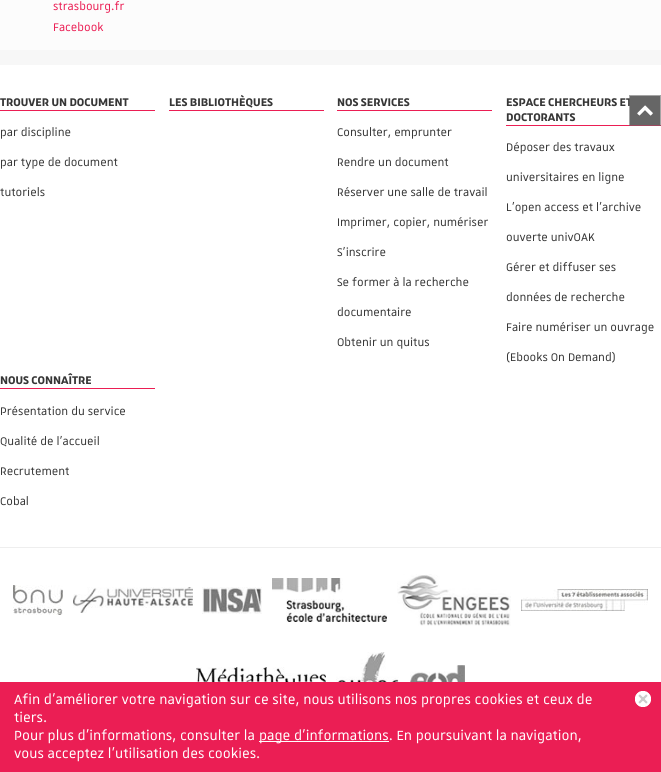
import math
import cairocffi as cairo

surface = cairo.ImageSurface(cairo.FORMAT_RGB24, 661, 772)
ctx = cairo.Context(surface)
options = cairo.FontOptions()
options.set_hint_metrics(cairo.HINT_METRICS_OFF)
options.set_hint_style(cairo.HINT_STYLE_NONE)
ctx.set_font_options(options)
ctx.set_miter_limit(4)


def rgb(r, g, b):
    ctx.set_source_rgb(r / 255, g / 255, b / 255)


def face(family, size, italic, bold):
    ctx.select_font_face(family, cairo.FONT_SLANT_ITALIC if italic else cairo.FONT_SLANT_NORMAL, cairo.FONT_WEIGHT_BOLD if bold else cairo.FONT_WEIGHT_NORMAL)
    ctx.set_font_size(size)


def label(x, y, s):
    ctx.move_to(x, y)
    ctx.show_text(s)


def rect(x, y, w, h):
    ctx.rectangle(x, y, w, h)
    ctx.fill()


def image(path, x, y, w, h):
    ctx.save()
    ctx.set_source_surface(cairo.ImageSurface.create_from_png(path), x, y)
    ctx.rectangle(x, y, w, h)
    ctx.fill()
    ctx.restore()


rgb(247, 247, 247)
ctx.paint()
rgb(252, 252, 252)
rect(0, 0, 661, 50)
face('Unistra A', 15, 0, 0)
rgb(235, 30, 84)
label(53, 10, 'strasbourg.fr')
label(53, 31, 'Facebook')
rgb(255, 255, 255)
rect(0, 65, 661, 617)
rgb(235, 30, 84)
rect(0, 110, 155, 1)
face('Unistra A', 15, 0, 1)
rgb(54, 54, 54)
label(0, 106, 'TROUVER UN DOCUMENT')
face('Unistra A', 15, 0, 0)
label(0, 136, 'par discipline')
label(0, 166, 'par type de document')
label(0, 196, 'tutoriels')
rgb(235, 30, 84)
rect(169, 110, 155, 1)
face('Unistra A', 15, 0, 1)
rgb(54, 54, 54)
label(169, 106, 'LES BIBLIOTHÈQUES')
rgb(235, 30, 84)
rect(337, 110, 155, 1)
rgb(54, 54, 54)
label(337, 106, 'NOS SERVICES')
face('Unistra A', 15, 0, 0)
label(337, 136, 'Consulter, emprunter')
label(337, 166, 'Rendre un document')
label(337, 196, 'Réserver une salle de travail')
label(337, 226, 'Imprimer, copier, numériser')
label(337, 256, 'S\'inscrire')
label(337, 286, 'Se former à la recherche')
label(337, 316, 'documentaire')
label(337, 346, 'Obtenir un quitus')
rgb(235, 30, 84)
rect(506, 125, 155, 1)
face('Unistra A', 15, 0, 1)
rgb(54, 54, 54)
label(506, 106, 'ESPACE CHERCHEURS ET')
label(506, 121, 'DOCTORANTS')
face('Unistra A', 15, 0, 0)
label(506, 151, 'Déposer des travaux')
label(506, 181, 'universitaires en ligne')
label(506, 211, 'L\'open access et l\'archive')
label(506, 241, 'ouverte univOAK')
label(506, 271, 'Gérer et diffuser ses')
label(506, 301, 'données de recherche')
label(506, 331, 'Faire numériser un ouvrage')
label(506, 361, '(Ebooks On Demand)')
rgb(235, 30, 84)
rect(0, 388, 155, 1)
face('Unistra A', 15, 0, 1)
rgb(54, 54, 54)
label(0, 384, 'NOUS CONNAÎTRE')
face('Unistra A', 15, 0, 0)
label(0, 415, 'Présentation du service')
label(0, 445, 'Qualité de l\'accueil')
label(0, 475, 'Recrutement')
label(0, 505, 'Cobal')
image('image0.png', 629, 95, 32, 31)
rgb(238, 238, 238)
rect(0, 547, 661, 1)
image('image1.png', 13, 585, 50, 30)
image('image2.png', 73, 587, 120, 26)
image('image3.png', 202, 587, 60, 27)
image('image4.png', 272, 578, 115, 44)
image('image5.png', 397, 574, 114, 52)
image('image6.png', 521, 589, 127, 22)
image('image7.png', 196, 667, 130, 15)
image('image8.png', 336, 652, 63, 30)
image('image9.png', 410, 665, 55, 17)
rgb(235, 30, 84)
rect(0, 682, 661, 90)
face('Unistra A', 18, 0, 0)
rgb(255, 255, 255)
label(14, 704, 'Afin d\'améliorer votre navigation sur ce site, nous utilisons nos propres cookies et ceux de')
label(14, 722, 'tiers.')
label(14, 740, 'Pour plus d\'informations, consulter la')
rect(259, 741, 130, 1)
label(259, 740, 'page d\'informations. En poursuivant la navigation,')
label(14, 758, 'vous acceptez l\'utilisation des cookies.')
image('image10.png', 635, 691, 16, 16)
surface.write_to_png('render.png')
